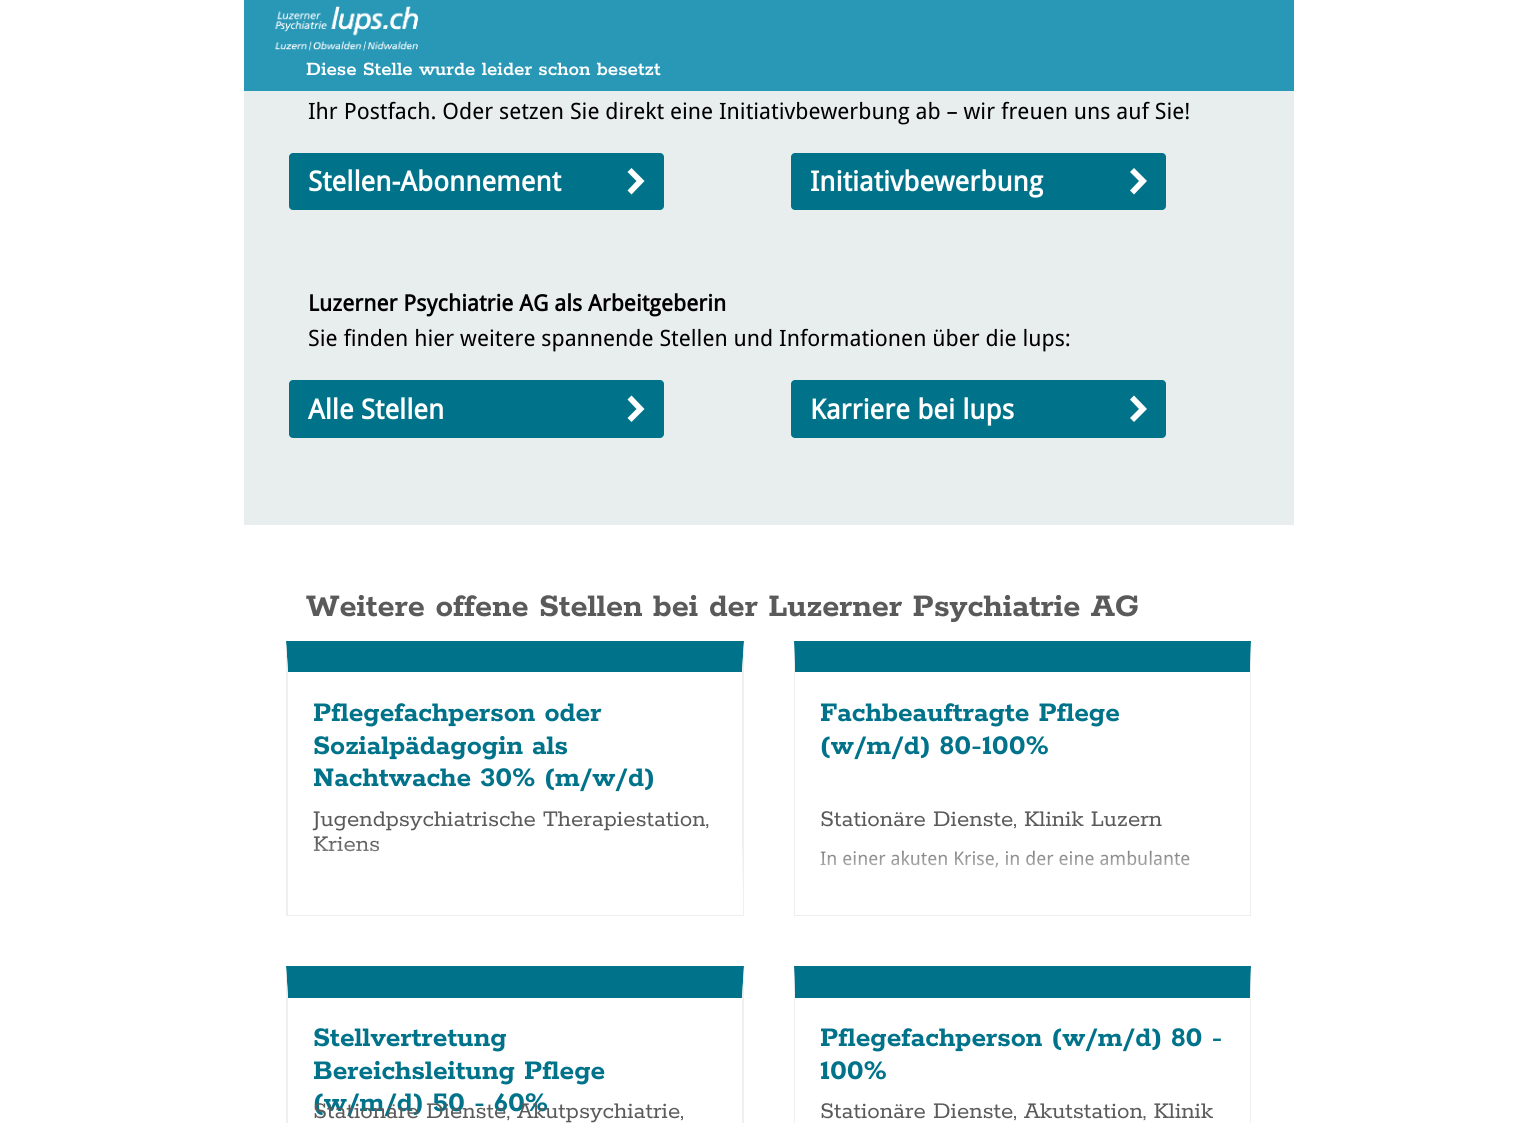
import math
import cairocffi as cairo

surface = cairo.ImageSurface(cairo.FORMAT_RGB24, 1537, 1123)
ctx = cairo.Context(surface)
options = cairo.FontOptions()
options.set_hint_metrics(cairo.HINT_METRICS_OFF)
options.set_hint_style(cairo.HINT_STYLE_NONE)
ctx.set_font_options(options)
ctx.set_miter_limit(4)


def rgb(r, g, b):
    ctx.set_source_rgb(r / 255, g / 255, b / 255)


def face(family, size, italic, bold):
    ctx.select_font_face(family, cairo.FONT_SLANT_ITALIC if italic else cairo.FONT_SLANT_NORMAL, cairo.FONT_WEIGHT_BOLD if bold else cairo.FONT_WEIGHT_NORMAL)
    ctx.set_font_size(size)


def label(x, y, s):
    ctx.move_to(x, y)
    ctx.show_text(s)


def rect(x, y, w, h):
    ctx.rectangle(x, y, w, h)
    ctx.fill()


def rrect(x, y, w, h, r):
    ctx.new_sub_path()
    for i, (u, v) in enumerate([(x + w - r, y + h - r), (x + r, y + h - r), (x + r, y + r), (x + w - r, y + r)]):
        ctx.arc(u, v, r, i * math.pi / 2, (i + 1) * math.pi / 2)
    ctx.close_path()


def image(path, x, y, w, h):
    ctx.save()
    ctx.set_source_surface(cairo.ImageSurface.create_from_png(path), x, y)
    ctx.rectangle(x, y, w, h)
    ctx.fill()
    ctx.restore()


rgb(255, 255, 255)
ctx.paint()
rgb(41, 152, 183)
rect(244, 0, 1050, 91)
image('image0.png', 275, 6, 144, 45)
face('Rokkitt SemiBold', 21, 0, 0)
rgb(255, 255, 255)
label(306, 75, 'Diese Stelle wurde leider schon besetzt')
rgb(232, 238, 237)
rect(244, 91, 1050, 434)
face('Droid Sans', 22.5, 0, 0)
rgb(0, 0, 0)
label(308, 119, 'Ihr Postfach. Oder setzen Sie direkt eine Initiativbewerbung ab – wir freuen uns auf Sie!')
rgb(0, 115, 138)
rrect(289, 153, 375, 57, 4)
ctx.fill()
face('Droid Sans', 27.5, 0, 1)
rgb(255, 255, 255)
label(308, 191, 'Stellen-Abonnement')
ctx.new_path()
ctx.move_to(631.5, 194.5)
ctx.line_to(644.5, 181)
ctx.line_to(631.5, 168)
ctx.line_to(627.5, 172)
ctx.line_to(636.5, 181)
ctx.line_to(627.5, 190.5)
ctx.close_path()
ctx.fill()
rgb(0, 115, 138)
rrect(791, 153, 375, 57, 4)
ctx.fill()
rgb(255, 255, 255)
label(810, 191, 'Initiativbewerbung')
ctx.new_path()
ctx.move_to(1134, 194.5)
ctx.line_to(1147, 181)
ctx.line_to(1134, 168)
ctx.line_to(1130, 172)
ctx.line_to(1139, 181)
ctx.line_to(1130, 190.5)
ctx.close_path()
ctx.fill()
face('Droid Sans', 22.5, 0, 1)
rgb(0, 0, 0)
label(308, 311, 'Luzerner Psychiatrie AG als Arbeitgeberin')
face('Droid Sans', 22.5, 0, 0)
label(308, 346, 'Sie finden hier weitere spannende Stellen und Informationen über die lups:')
rgb(0, 115, 138)
rrect(289, 380, 375, 58, 4)
ctx.fill()
face('Droid Sans', 27.5, 0, 1)
rgb(255, 255, 255)
label(308, 419, 'Alle Stellen')
ctx.new_path()
ctx.move_to(631.5, 422)
ctx.line_to(644.5, 409)
ctx.line_to(631.5, 395.5)
ctx.line_to(627.5, 399.5)
ctx.line_to(636.5, 409)
ctx.line_to(627.5, 418)
ctx.close_path()
ctx.fill()
rgb(0, 115, 138)
rrect(791, 380, 375, 58, 4)
ctx.fill()
rgb(255, 255, 255)
label(810, 419, 'Karriere bei lups')
ctx.new_path()
ctx.move_to(1134, 422)
ctx.line_to(1147, 409)
ctx.line_to(1134, 395.5)
ctx.line_to(1130, 399.5)
ctx.line_to(1139, 409)
ctx.line_to(1130, 418)
ctx.close_path()
ctx.fill()
face('Rokkitt', 35, 0, 1)
rgb(90, 90, 90)
label(306, 616, 'Weitere offene Stellen bei der Luzerner Psychiatrie AG')
rgb(0, 115, 138)
ctx.new_path()
ctx.move_to(286, 641)
ctx.line_to(744, 641)
ctx.line_to(742, 672)
ctx.line_to(288, 672)
ctx.close_path()
ctx.fill()
rgb(239, 239, 239)
ctx.new_path()
ctx.move_to(744, 641)
ctx.line_to(744, 916)
ctx.line_to(742, 915)
ctx.line_to(742, 672)
ctx.close_path()
ctx.fill()
rect(286, 915, 458, 1)
ctx.new_path()
ctx.move_to(286, 916)
ctx.line_to(286, 641)
ctx.line_to(288, 672)
ctx.line_to(288, 915)
ctx.close_path()
ctx.fill()
face('Rokkitt', 30, 0, 1)
rgb(0, 115, 138)
label(313, 721, 'Pflegefachperson oder')
label(313, 754, 'Sozialpädagogin als')
label(313, 786, 'Nachtwache 30% (m/w/d)')
face('Rokkitt', 25, 0, 0)
rgb(90, 90, 90)
label(313, 826, 'Jugendpsychiatrische Therapiestation,')
label(313, 851, 'Kriens')
gradient = cairo.LinearGradient(540, 840, 540, 915)
gradient.add_color_stop_rgba(0, 1, 1, 1, 0)
gradient.add_color_stop_rgba(0.7, 1, 1, 1, 1)
ctx.set_source(gradient)
rect(313, 841, 430, 74)
rgb(0, 115, 138)
ctx.new_path()
ctx.move_to(794, 641)
ctx.line_to(1251, 641)
ctx.line_to(1250, 672)
ctx.line_to(795, 672)
ctx.close_path()
ctx.fill()
rgb(239, 239, 239)
ctx.new_path()
ctx.move_to(1251, 641)
ctx.line_to(1251, 916)
ctx.line_to(1250, 915)
ctx.line_to(1250, 672)
ctx.close_path()
ctx.fill()
rect(794, 915, 457, 1)
ctx.new_path()
ctx.move_to(794, 916)
ctx.line_to(794, 641)
ctx.line_to(795, 672)
ctx.line_to(795, 915)
ctx.close_path()
ctx.fill()
face('Rokkitt', 30, 0, 1)
rgb(0, 115, 138)
label(820, 721, 'Fachbeauftragte Pflege')
label(820, 754, '(w/m/d) 80-100%')
face('Rokkitt', 25, 0, 0)
rgb(90, 90, 90)
label(820, 826, 'Stationäre Dienste, Klinik Luzern')
face('Droid Sans', 18.75, 0, 0)
label(820, 865, 'In einer akuten Krise, in der eine ambulante')
gradient = cairo.LinearGradient(1048, 840, 1048, 915)
gradient.add_color_stop_rgba(0, 1, 1, 1, 0)
gradient.add_color_stop_rgba(0.7, 1, 1, 1, 1)
ctx.set_source(gradient)
rect(821, 850, 369, 18)
rgb(0, 115, 138)
ctx.new_path()
ctx.move_to(286, 966)
ctx.line_to(744, 966)
ctx.line_to(742, 998)
ctx.line_to(288, 998)
ctx.close_path()
ctx.fill()
rgb(239, 239, 239)
ctx.new_path()
ctx.move_to(744, 966)
ctx.line_to(744, 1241)
ctx.line_to(742, 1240)
ctx.line_to(742, 998)
ctx.close_path()
ctx.fill()
ctx.new_path()
ctx.move_to(286, 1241)
ctx.line_to(286, 966)
ctx.line_to(288, 998)
ctx.line_to(288, 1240)
ctx.close_path()
ctx.fill()
face('Rokkitt', 30, 0, 1)
rgb(0, 115, 138)
label(313, 1046, 'Stellvertretung')
label(313, 1079, 'Bereichsleitung Pflege')
label(313, 1111, '(w/m/d) 50 - 60%')
face('Rokkitt', 25, 0, 0)
rgb(90, 90, 90)
label(313, 1118, 'Stationäre Dienste, Akutpsychiatrie,')
rgb(0, 115, 138)
ctx.new_path()
ctx.move_to(794, 966)
ctx.line_to(1251, 966)
ctx.line_to(1250, 998)
ctx.line_to(795, 998)
ctx.close_path()
ctx.fill()
rgb(239, 239, 239)
ctx.new_path()
ctx.move_to(1251, 966)
ctx.line_to(1251, 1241)
ctx.line_to(1250, 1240)
ctx.line_to(1250, 998)
ctx.close_path()
ctx.fill()
ctx.new_path()
ctx.move_to(794, 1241)
ctx.line_to(794, 966)
ctx.line_to(795, 998)
ctx.line_to(795, 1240)
ctx.close_path()
ctx.fill()
face('Rokkitt', 30, 0, 1)
rgb(0, 115, 138)
label(820, 1046, 'Pflegefachperson (w/m/d) 80 -')
label(820, 1079, '100%')
face('Rokkitt', 25, 0, 0)
rgb(90, 90, 90)
label(820, 1118, 'Stationäre Dienste, Akutstation, Klinik')
surface.write_to_png('render.png')
